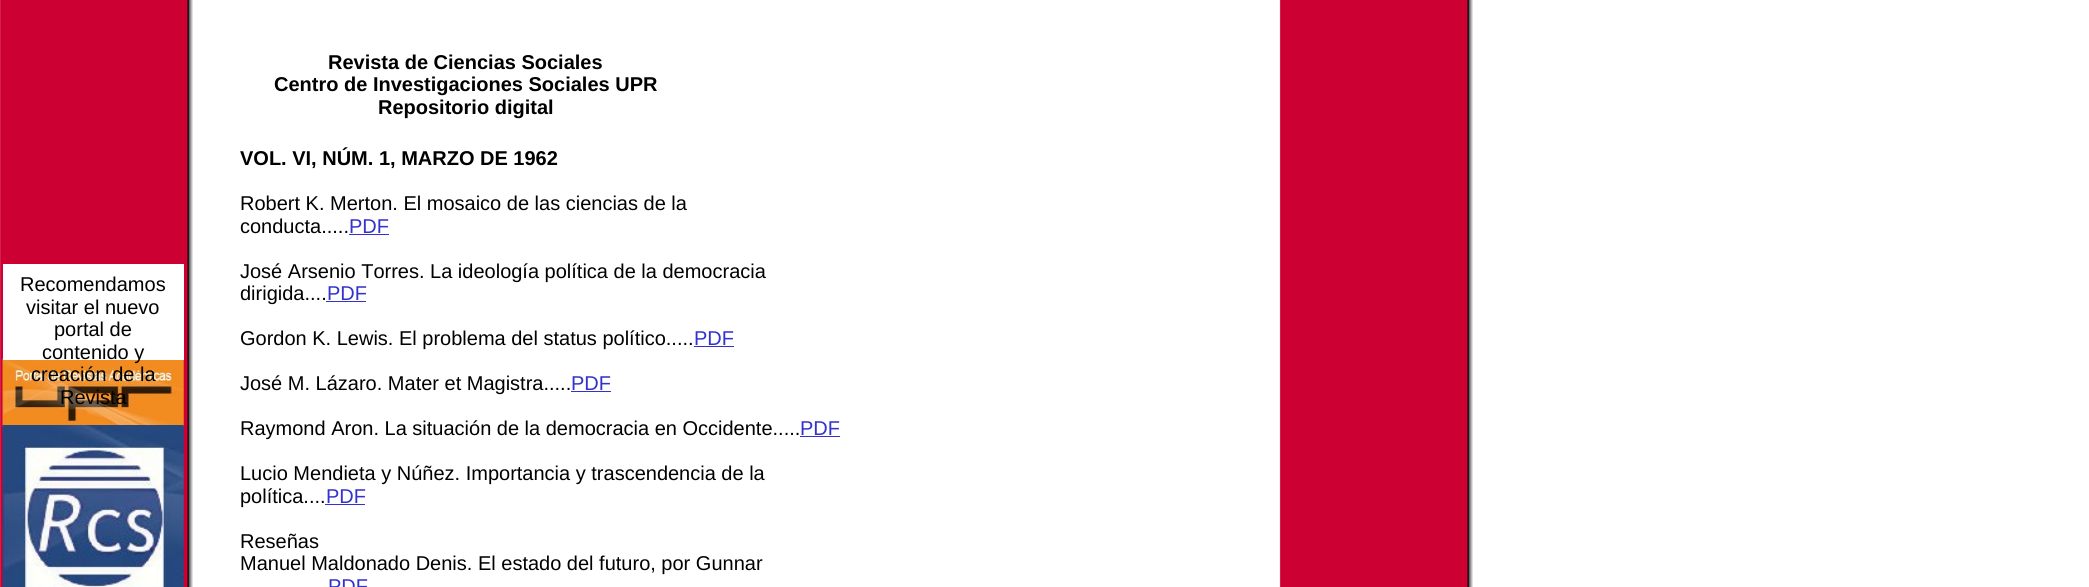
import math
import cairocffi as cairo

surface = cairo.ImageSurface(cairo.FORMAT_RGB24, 2089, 587)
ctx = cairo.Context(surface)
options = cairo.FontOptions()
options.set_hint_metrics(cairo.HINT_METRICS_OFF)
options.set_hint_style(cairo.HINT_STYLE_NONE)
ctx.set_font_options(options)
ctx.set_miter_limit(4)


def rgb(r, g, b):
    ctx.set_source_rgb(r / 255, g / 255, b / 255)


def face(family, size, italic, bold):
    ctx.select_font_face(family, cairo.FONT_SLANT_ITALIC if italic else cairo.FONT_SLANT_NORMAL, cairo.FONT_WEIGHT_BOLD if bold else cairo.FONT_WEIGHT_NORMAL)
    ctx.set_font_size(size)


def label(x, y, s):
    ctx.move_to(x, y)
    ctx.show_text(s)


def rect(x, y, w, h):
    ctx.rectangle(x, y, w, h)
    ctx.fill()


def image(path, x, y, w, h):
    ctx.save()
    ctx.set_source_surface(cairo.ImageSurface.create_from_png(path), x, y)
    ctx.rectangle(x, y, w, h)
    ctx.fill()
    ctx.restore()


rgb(255, 255, 255)
ctx.paint()
image('image0.png', 0, 0, 1473, 587)
face('Liberation Sans', 20, 0, 1)
rgb(0, 0, 0)
label(328, 69, 'Revista de Ciencias Sociales')
label(274, 91, 'Centro de Investigaciones Sociales UPR')
label(378, 114, 'Repositorio digital')
image('image1.png', 2, 358, 182, 69)
rgb(255, 255, 255)
rect(3, 264, 181, 96)
rgb(0, 0, 0)
label(240, 165, 'VOL. VI, NÚM. 1, MARZO DE 1962')
face('Liberation Sans', 20, 0, 0)
label(240, 210, 'Robert K. Merton. El mosaico de las ciencias de la')
label(240, 233, 'conducta.....')
rgb(51, 51, 204)
label(349, 233, 'PDF')
rect(349, 234, 40, 1)
rgb(0, 0, 0)
label(240, 278, 'José Arsenio Torres. La ideología política de la democracia')
label(240, 300, 'dirigida....')
rgb(51, 51, 204)
label(327, 300, 'PDF')
rect(326, 301, 40, 1)
rgb(0, 0, 0)
label(240, 345, 'Gordon K. Lewis. El problema del status político.....')
rgb(51, 51, 204)
label(694, 345, 'PDF')
rect(694, 346, 40, 1)
rgb(0, 0, 0)
label(240, 390, 'José M. Lázaro. Mater et Magistra.....')
rgb(51, 51, 204)
label(571, 390, 'PDF')
rect(571, 391, 40, 1)
rgb(0, 0, 0)
label(240, 435, 'Raymond Aron. La situación de la democracia en Occidente.....')
rgb(51, 51, 204)
label(800, 435, 'PDF')
rect(800, 436, 40, 1)
rgb(0, 0, 0)
label(240, 480, 'Lucio Mendieta y Núñez. Importancia y trascendencia de la')
label(240, 503, 'política....')
rgb(51, 51, 204)
label(326, 503, 'PDF')
rect(325, 504, 40, 1)
rgb(0, 0, 0)
label(240, 548, 'Reseñas')
label(240, 570, 'Manuel Maldonado Denis. El estado del futuro, por Gunnar')
rgb(51, 51, 204)
label(328, 593, 'PDF')
rgb(0, 0, 0)
label(20, 291, 'Recomendamos')
label(26, 314, 'visitar el nuevo')
label(54, 336, 'portal de')
label(42, 359, 'contenido y')
label(31, 381, 'creación de la')
label(60, 404, 'Revista')
image('image2.png', 2, 425, 182, 162)
surface.write_to_png('render.png')
